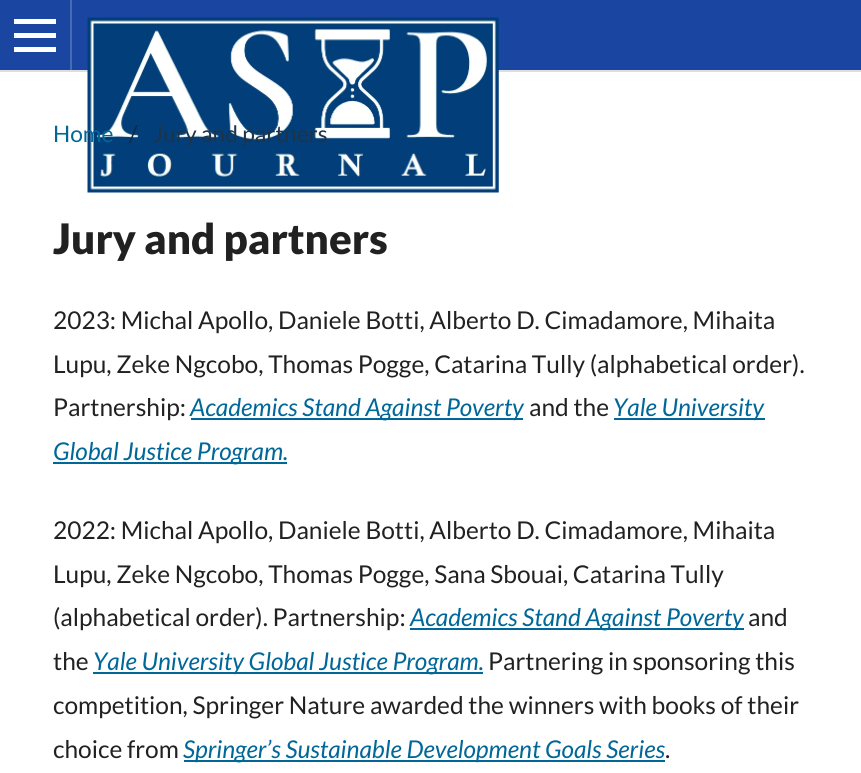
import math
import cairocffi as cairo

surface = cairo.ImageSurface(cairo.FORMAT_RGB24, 861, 773)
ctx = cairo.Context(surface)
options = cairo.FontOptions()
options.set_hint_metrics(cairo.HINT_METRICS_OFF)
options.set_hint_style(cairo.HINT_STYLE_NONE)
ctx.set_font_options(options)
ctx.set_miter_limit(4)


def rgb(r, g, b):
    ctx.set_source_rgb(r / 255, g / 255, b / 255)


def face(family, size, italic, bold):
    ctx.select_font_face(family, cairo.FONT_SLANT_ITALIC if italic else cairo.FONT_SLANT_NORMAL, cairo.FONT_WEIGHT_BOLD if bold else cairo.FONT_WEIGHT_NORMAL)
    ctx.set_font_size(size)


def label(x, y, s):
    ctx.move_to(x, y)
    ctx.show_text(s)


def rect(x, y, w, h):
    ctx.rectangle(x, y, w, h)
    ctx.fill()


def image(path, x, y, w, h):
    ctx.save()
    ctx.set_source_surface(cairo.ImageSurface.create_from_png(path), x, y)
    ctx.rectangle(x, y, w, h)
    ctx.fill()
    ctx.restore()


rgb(255, 255, 255)
ctx.paint()
rgb(26, 70, 161)
rect(0, 0, 861, 70)
rgb(221, 221, 221)
rect(0, 70, 861, 2)
rgb(72, 107, 180)
rect(70, 0, 2, 70)
rgb(255, 255, 255)
rect(14, 47, 42, 5)
rect(14, 19, 42, 5)
rect(14, 33, 42, 5)
image('image0.png', 87, 17, 412, 176)
face('Lato', 22.75, 0, 0)
rgb(0, 103, 152)
label(53, 142, 'Home')
rgb(15, 40, 63)
label(129, 142, '/')
rgb(30, 51, 71)
label(153, 142, 'Jury and partners')
face('Lato Black', 42, 0, 0)
rgb(33, 33, 33)
label(53, 254, 'Jury and partners')
face('Lato', 24.5, 0, 0)
label(53, 329, '2023: Michal Apollo, Daniele Botti, Alberto D. Cimadamore, Mihaita')
label(53, 373, 'Lupu, Zeke Ngcobo, Thomas Pogge, Catarina Tully (alphabetical order).')
label(53, 416, 'Partnership:')
rgb(0, 103, 152)
rect(191, 418, 332, 2)
face('Lato', 24.5, 1, 0)
label(190, 416, 'Academics Stand Against Poverty')
face('Lato', 24.5, 0, 0)
rgb(33, 33, 33)
label(529, 416, 'and the')
rgb(0, 103, 152)
rect(614, 418, 151, 2)
face('Lato', 24.5, 1, 0)
label(613, 416, 'Yale University')
rect(53, 462, 234, 2)
label(53, 460, 'Global Justice Program.')
face('Lato', 24.5, 0, 0)
rgb(33, 33, 33)
label(53, 539, '2022: Michal Apollo, Daniele Botti, Alberto D. Cimadamore, Mihaita')
label(53, 583, 'Lupu, Zeke Ngcobo, Thomas Pogge, Sana Sbouai, Catarina Tully')
label(53, 626, '(alphabetical order). Partnership:')
rgb(0, 103, 152)
rect(410, 628, 334, 2)
face('Lato', 24.5, 1, 0)
label(410, 626, 'Academics Stand Against Poverty')
face('Lato', 24.5, 0, 0)
rgb(33, 33, 33)
label(748, 626, 'and')
label(53, 670, 'the')
rgb(0, 103, 152)
rect(93, 672, 390, 2)
face('Lato', 24.5, 1, 0)
label(93, 670, 'Yale University Global Justice Program.')
face('Lato', 24.5, 0, 0)
rgb(33, 33, 33)
label(488, 670, 'Partnering in sponsoring this')
label(53, 714, 'competition, Springer Nature awarded the winners with books of their')
label(53, 758, 'choice from')
rgb(0, 103, 152)
rect(184, 760, 481, 2)
face('Lato', 24.5, 1, 0)
label(183, 758, 'Springer’s Sustainable Development Goals Series')
face('Lato', 24.5, 0, 0)
rgb(33, 33, 33)
label(665, 758, '.')
surface.write_to_png('render.png')
